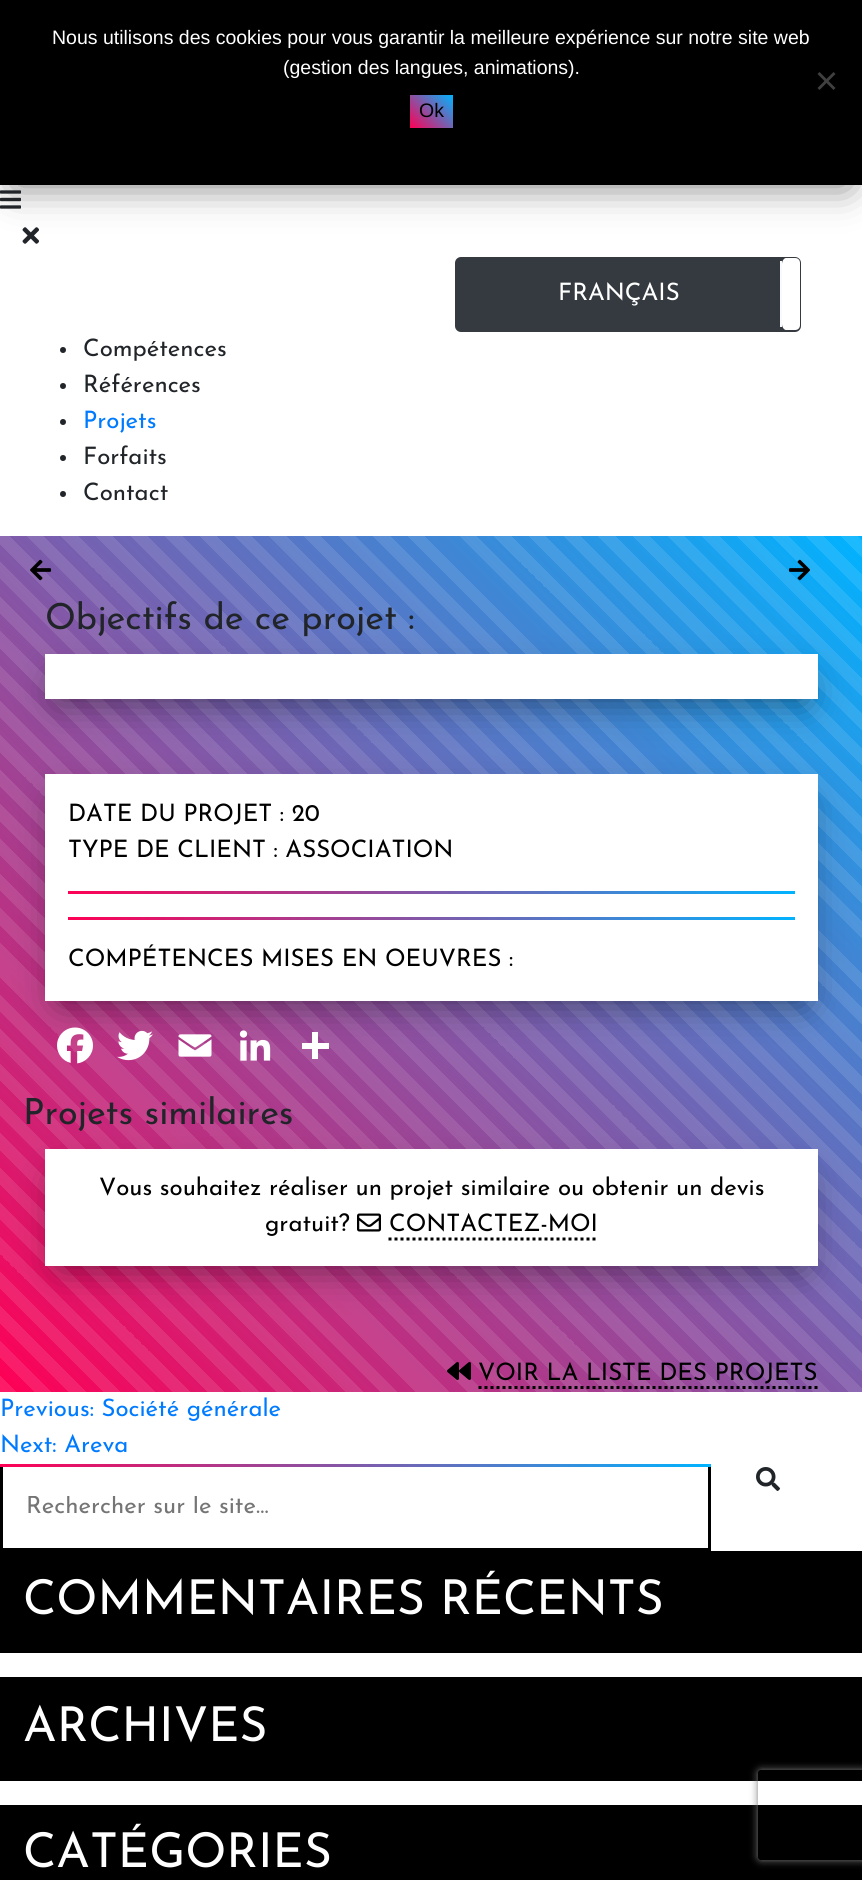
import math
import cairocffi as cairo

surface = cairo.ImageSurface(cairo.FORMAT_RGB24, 862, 1880)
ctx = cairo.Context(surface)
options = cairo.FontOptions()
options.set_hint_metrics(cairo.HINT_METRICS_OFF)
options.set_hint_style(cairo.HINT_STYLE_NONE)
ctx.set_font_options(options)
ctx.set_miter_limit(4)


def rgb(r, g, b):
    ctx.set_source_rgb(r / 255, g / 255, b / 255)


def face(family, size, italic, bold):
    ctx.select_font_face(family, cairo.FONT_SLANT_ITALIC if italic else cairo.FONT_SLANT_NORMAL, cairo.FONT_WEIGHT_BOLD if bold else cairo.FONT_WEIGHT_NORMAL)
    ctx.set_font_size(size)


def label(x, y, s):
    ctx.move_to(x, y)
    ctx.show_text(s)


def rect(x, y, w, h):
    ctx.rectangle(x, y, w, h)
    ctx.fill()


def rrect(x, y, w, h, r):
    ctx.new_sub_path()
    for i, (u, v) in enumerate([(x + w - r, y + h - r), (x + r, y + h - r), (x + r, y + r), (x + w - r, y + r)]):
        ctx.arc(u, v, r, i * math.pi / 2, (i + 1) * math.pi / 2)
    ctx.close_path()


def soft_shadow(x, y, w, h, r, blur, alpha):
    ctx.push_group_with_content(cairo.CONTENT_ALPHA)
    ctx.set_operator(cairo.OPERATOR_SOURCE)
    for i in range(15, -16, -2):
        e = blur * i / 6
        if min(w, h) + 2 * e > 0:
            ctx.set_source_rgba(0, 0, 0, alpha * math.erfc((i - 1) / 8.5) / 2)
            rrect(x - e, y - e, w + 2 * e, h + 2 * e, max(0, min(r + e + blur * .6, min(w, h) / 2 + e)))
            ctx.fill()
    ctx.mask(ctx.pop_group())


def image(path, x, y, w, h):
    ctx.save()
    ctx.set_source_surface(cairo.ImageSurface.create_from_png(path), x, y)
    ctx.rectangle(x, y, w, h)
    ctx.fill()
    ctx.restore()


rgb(255, 255, 255)
ctx.paint()
rgb(0, 0, 0)
soft_shadow(15, 30, 833, 155, 0, 19.5, 0.53)
rgb(0, 0, 0)
rect(0, 0, 862, 185)
face('Liberation Sans', 19.5, 0, 0)
rgb(255, 255, 255)
label(52, 44, 'Nous utilisons des cookies pour vous garantir la meilleure expérience sur notre site web')
label(283, 74, '(gestion des langues, animations).')
rgb(64, 64, 64)
ctx.new_path()
ctx.move_to(833.5, 72)
ctx.line_to(835.5, 74)
ctx.line_to(819.5, 90)
ctx.line_to(817.5, 88)
ctx.close_path()
ctx.fill()
ctx.new_path()
ctx.move_to(817.5, 74)
ctx.line_to(819.5, 72)
ctx.line_to(835.5, 88)
ctx.line_to(833.5, 90)
ctx.close_path()
ctx.fill()
gradient = cairo.LinearGradient(412, 130, 450, 92)
gradient.add_color_stop_rgba(0, 1, 0, 0.333, 1)
gradient.add_color_stop_rgba(1, 0, 0.702, 1, 1)
ctx.set_source(gradient)
rect(410, 95, 43, 33)
rgb(0, 0, 0)
label(419, 117, 'Ok')
image('image0.png', 0, 190, 21, 19)
image('image1.png', 22, 227, 17, 17)
rgb(52, 58, 64)
rrect(456, 258, 344, 73, 5)
ctx.fill_preserve()
ctx.stroke()
face('Josefin Sans', 24, 0, 0)
rgb(255, 255, 255)
label(558, 300, 'FRANÇAIS')
ctx.new_path()
ctx.move_to(786, 258)
ctx.curve_to(784, 258, 782, 261, 782, 264)
ctx.line_to(782, 324)
ctx.curve_to(782, 327, 784, 330, 786, 330)
ctx.line_to(795, 330)
ctx.curve_to(798, 330, 800, 328, 800, 325)
ctx.line_to(800, 263)
ctx.curve_to(800, 260, 798, 258, 795, 258)
ctx.close_path()
ctx.fill()
rgb(248, 249, 250)
rect(780, 261, 2, 66)
rgb(33, 37, 41)
ctx.arc(63, 350, 3, 0, 2 * math.pi)
ctx.fill()
label(83, 356, 'Compétences')
ctx.new_path()
ctx.arc(63, 386, 3, 0, 2 * math.pi)
ctx.fill()
label(83, 392, 'Références')
ctx.new_path()
ctx.arc(63, 422, 3, 0, 2 * math.pi)
ctx.fill()
rgb(0, 123, 255)
label(83, 428, 'Projets')
rgb(33, 37, 41)
ctx.new_path()
ctx.arc(63, 458, 3, 0, 2 * math.pi)
ctx.fill()
label(83, 464, 'Forfaits')
ctx.new_path()
ctx.arc(63, 494, 3, 0, 2 * math.pi)
ctx.fill()
label(83, 500, 'Contact')
gradient = cairo.LinearGradient(1.5, 1394, 861, 534)
gradient.add_color_stop_rgba(0, 1, 0, 0.333, 1)
gradient.add_color_stop_rgba(1, 0, 0.702, 1, 1)
ctx.set_source(gradient)
rect(0, 536, 862, 856)
gradient = cairo.LinearGradient(1.5, 1394, 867, 528)
gradient.add_color_stop_rgba(0, 1, 1, 1, 0.1)
gradient.add_color_stop_rgba(0.01, 1, 1, 1, 0.1)
gradient.add_color_stop_rgba(0.01, 1, 1, 1, 0)
gradient.add_color_stop_rgba(0.02, 1, 1, 1, 0)
gradient.add_color_stop_rgba(0.02, 1, 1, 1, 0.1)
gradient.add_color_stop_rgba(0.03, 1, 1, 1, 0.1)
gradient.add_color_stop_rgba(0.03, 1, 1, 1, 0)
gradient.add_color_stop_rgba(0.04, 1, 1, 1, 0)
gradient.add_color_stop_rgba(0.04, 1, 1, 1, 0.1)
gradient.add_color_stop_rgba(0.05, 1, 1, 1, 0.1)
gradient.add_color_stop_rgba(0.05, 1, 1, 1, 0)
gradient.add_color_stop_rgba(0.06, 1, 1, 1, 0)
gradient.add_color_stop_rgba(0.06, 1, 1, 1, 0.1)
gradient.add_color_stop_rgba(0.07, 1, 1, 1, 0.1)
gradient.add_color_stop_rgba(0.07, 1, 1, 1, 0)
gradient.add_color_stop_rgba(0.08, 1, 1, 1, 0)
gradient.add_color_stop_rgba(0.08, 1, 1, 1, 0.1)
gradient.add_color_stop_rgba(0.09, 1, 1, 1, 0.1)
gradient.add_color_stop_rgba(0.09, 1, 1, 1, 0)
gradient.add_color_stop_rgba(0.1, 1, 1, 1, 0)
gradient.add_color_stop_rgba(0.1, 1, 1, 1, 0.1)
gradient.add_color_stop_rgba(0.11, 1, 1, 1, 0.1)
gradient.add_color_stop_rgba(0.11, 1, 1, 1, 0)
gradient.add_color_stop_rgba(0.12, 1, 1, 1, 0)
gradient.add_color_stop_rgba(0.12, 1, 1, 1, 0.1)
gradient.add_color_stop_rgba(0.13, 1, 1, 1, 0.1)
gradient.add_color_stop_rgba(0.13, 1, 1, 1, 0)
gradient.add_color_stop_rgba(0.14, 1, 1, 1, 0)
gradient.add_color_stop_rgba(0.14, 1, 1, 1, 0.1)
gradient.add_color_stop_rgba(0.15, 1, 1, 1, 0.1)
gradient.add_color_stop_rgba(0.15, 1, 1, 1, 0)
gradient.add_color_stop_rgba(0.16, 1, 1, 1, 0)
gradient.add_color_stop_rgba(0.16, 1, 1, 1, 0.1)
gradient.add_color_stop_rgba(0.17, 1, 1, 1, 0.1)
gradient.add_color_stop_rgba(0.17, 1, 1, 1, 0)
gradient.add_color_stop_rgba(0.18, 1, 1, 1, 0)
gradient.add_color_stop_rgba(0.18, 1, 1, 1, 0.1)
gradient.add_color_stop_rgba(0.19, 1, 1, 1, 0.1)
gradient.add_color_stop_rgba(0.19, 1, 1, 1, 0)
gradient.add_color_stop_rgba(0.2, 1, 1, 1, 0)
gradient.add_color_stop_rgba(0.2, 1, 1, 1, 0.1)
gradient.add_color_stop_rgba(0.21, 1, 1, 1, 0.1)
gradient.add_color_stop_rgba(0.21, 1, 1, 1, 0)
gradient.add_color_stop_rgba(0.22, 1, 1, 1, 0)
gradient.add_color_stop_rgba(0.22, 1, 1, 1, 0.1)
gradient.add_color_stop_rgba(0.23, 1, 1, 1, 0.1)
gradient.add_color_stop_rgba(0.23, 1, 1, 1, 0)
gradient.add_color_stop_rgba(0.24, 1, 1, 1, 0)
gradient.add_color_stop_rgba(0.24, 1, 1, 1, 0.1)
gradient.add_color_stop_rgba(0.25, 1, 1, 1, 0.1)
gradient.add_color_stop_rgba(0.25, 1, 1, 1, 0)
gradient.add_color_stop_rgba(0.25, 1, 1, 1, 0)
gradient.add_color_stop_rgba(0.25, 1, 1, 1, 0.1)
gradient.add_color_stop_rgba(0.26, 1, 1, 1, 0.1)
gradient.add_color_stop_rgba(0.26, 1, 1, 1, 0)
gradient.add_color_stop_rgba(0.27, 1, 1, 1, 0)
gradient.add_color_stop_rgba(0.27, 1, 1, 1, 0.1)
gradient.add_color_stop_rgba(0.28, 1, 1, 1, 0.1)
gradient.add_color_stop_rgba(0.28, 1, 1, 1, 0)
gradient.add_color_stop_rgba(0.29, 1, 1, 1, 0)
gradient.add_color_stop_rgba(0.29, 1, 1, 1, 0.1)
gradient.add_color_stop_rgba(0.3, 1, 1, 1, 0.1)
gradient.add_color_stop_rgba(0.3, 1, 1, 1, 0)
gradient.add_color_stop_rgba(0.31, 1, 1, 1, 0)
gradient.add_color_stop_rgba(0.31, 1, 1, 1, 0.1)
gradient.add_color_stop_rgba(0.32, 1, 1, 1, 0.1)
gradient.add_color_stop_rgba(0.32, 1, 1, 1, 0)
gradient.add_color_stop_rgba(0.33, 1, 1, 1, 0)
gradient.add_color_stop_rgba(0.33, 1, 1, 1, 0.1)
gradient.add_color_stop_rgba(0.34, 1, 1, 1, 0.1)
gradient.add_color_stop_rgba(0.34, 1, 1, 1, 0)
gradient.add_color_stop_rgba(0.35, 1, 1, 1, 0)
gradient.add_color_stop_rgba(0.35, 1, 1, 1, 0.1)
gradient.add_color_stop_rgba(0.36, 1, 1, 1, 0.1)
gradient.add_color_stop_rgba(0.36, 1, 1, 1, 0)
gradient.add_color_stop_rgba(0.37, 1, 1, 1, 0)
gradient.add_color_stop_rgba(0.37, 1, 1, 1, 0.1)
gradient.add_color_stop_rgba(0.38, 1, 1, 1, 0.1)
gradient.add_color_stop_rgba(0.38, 1, 1, 1, 0)
gradient.add_color_stop_rgba(0.39, 1, 1, 1, 0)
gradient.add_color_stop_rgba(0.39, 1, 1, 1, 0.1)
gradient.add_color_stop_rgba(0.4, 1, 1, 1, 0.1)
gradient.add_color_stop_rgba(0.4, 1, 1, 1, 0)
gradient.add_color_stop_rgba(0.41, 1, 1, 1, 0)
gradient.add_color_stop_rgba(0.41, 1, 1, 1, 0.1)
gradient.add_color_stop_rgba(0.42, 1, 1, 1, 0.1)
gradient.add_color_stop_rgba(0.42, 1, 1, 1, 0)
gradient.add_color_stop_rgba(0.43, 1, 1, 1, 0)
gradient.add_color_stop_rgba(0.43, 1, 1, 1, 0.1)
gradient.add_color_stop_rgba(0.44, 1, 1, 1, 0.1)
gradient.add_color_stop_rgba(0.44, 1, 1, 1, 0)
gradient.add_color_stop_rgba(0.45, 1, 1, 1, 0)
gradient.add_color_stop_rgba(0.45, 1, 1, 1, 0.1)
gradient.add_color_stop_rgba(0.46, 1, 1, 1, 0.1)
gradient.add_color_stop_rgba(0.46, 1, 1, 1, 0)
gradient.add_color_stop_rgba(0.47, 1, 1, 1, 0)
gradient.add_color_stop_rgba(0.47, 1, 1, 1, 0.1)
gradient.add_color_stop_rgba(0.48, 1, 1, 1, 0.1)
gradient.add_color_stop_rgba(0.48, 1, 1, 1, 0)
gradient.add_color_stop_rgba(0.49, 1, 1, 1, 0)
gradient.add_color_stop_rgba(0.49, 1, 1, 1, 0.1)
gradient.add_color_stop_rgba(0.5, 1, 1, 1, 0.1)
gradient.add_color_stop_rgba(0.5, 1, 1, 1, 0)
gradient.add_color_stop_rgba(0.51, 1, 1, 1, 0)
gradient.add_color_stop_rgba(0.51, 1, 1, 1, 0.1)
gradient.add_color_stop_rgba(0.52, 1, 1, 1, 0.1)
gradient.add_color_stop_rgba(0.52, 1, 1, 1, 0)
gradient.add_color_stop_rgba(0.53, 1, 1, 1, 0)
gradient.add_color_stop_rgba(0.53, 1, 1, 1, 0.1)
gradient.add_color_stop_rgba(0.54, 1, 1, 1, 0.1)
gradient.add_color_stop_rgba(0.54, 1, 1, 1, 0)
gradient.add_color_stop_rgba(0.55, 1, 1, 1, 0)
gradient.add_color_stop_rgba(0.55, 1, 1, 1, 0.1)
gradient.add_color_stop_rgba(0.56, 1, 1, 1, 0.1)
gradient.add_color_stop_rgba(0.56, 1, 1, 1, 0)
gradient.add_color_stop_rgba(0.57, 1, 1, 1, 0)
gradient.add_color_stop_rgba(0.57, 1, 1, 1, 0.1)
gradient.add_color_stop_rgba(0.58, 1, 1, 1, 0.1)
gradient.add_color_stop_rgba(0.58, 1, 1, 1, 0)
gradient.add_color_stop_rgba(0.59, 1, 1, 1, 0)
gradient.add_color_stop_rgba(0.59, 1, 1, 1, 0.1)
gradient.add_color_stop_rgba(0.6, 1, 1, 1, 0.1)
gradient.add_color_stop_rgba(0.6, 1, 1, 1, 0)
gradient.add_color_stop_rgba(0.61, 1, 1, 1, 0)
gradient.add_color_stop_rgba(0.61, 1, 1, 1, 0.1)
gradient.add_color_stop_rgba(0.62, 1, 1, 1, 0.1)
gradient.add_color_stop_rgba(0.62, 1, 1, 1, 0)
gradient.add_color_stop_rgba(0.63, 1, 1, 1, 0)
gradient.add_color_stop_rgba(0.63, 1, 1, 1, 0.1)
gradient.add_color_stop_rgba(0.64, 1, 1, 1, 0.1)
gradient.add_color_stop_rgba(0.64, 1, 1, 1, 0)
gradient.add_color_stop_rgba(0.65, 1, 1, 1, 0)
gradient.add_color_stop_rgba(0.65, 1, 1, 1, 0.1)
gradient.add_color_stop_rgba(0.66, 1, 1, 1, 0.1)
gradient.add_color_stop_rgba(0.66, 1, 1, 1, 0)
gradient.add_color_stop_rgba(0.67, 1, 1, 1, 0)
gradient.add_color_stop_rgba(0.67, 1, 1, 1, 0.1)
gradient.add_color_stop_rgba(0.68, 1, 1, 1, 0.1)
gradient.add_color_stop_rgba(0.68, 1, 1, 1, 0)
gradient.add_color_stop_rgba(0.69, 1, 1, 1, 0)
gradient.add_color_stop_rgba(0.69, 1, 1, 1, 0.1)
gradient.add_color_stop_rgba(0.7, 1, 1, 1, 0.1)
gradient.add_color_stop_rgba(0.7, 1, 1, 1, 0)
gradient.add_color_stop_rgba(0.71, 1, 1, 1, 0)
gradient.add_color_stop_rgba(0.71, 1, 1, 1, 0.1)
gradient.add_color_stop_rgba(0.72, 1, 1, 1, 0.1)
gradient.add_color_stop_rgba(0.72, 1, 1, 1, 0)
gradient.add_color_stop_rgba(0.73, 1, 1, 1, 0)
gradient.add_color_stop_rgba(0.73, 1, 1, 1, 0.1)
gradient.add_color_stop_rgba(0.74, 1, 1, 1, 0.1)
gradient.add_color_stop_rgba(0.74, 1, 1, 1, 0)
gradient.add_color_stop_rgba(0.75, 1, 1, 1, 0)
gradient.add_color_stop_rgba(0.75, 1, 1, 1, 0.1)
gradient.add_color_stop_rgba(0.75, 1, 1, 1, 0.1)
gradient.add_color_stop_rgba(0.75, 1, 1, 1, 0)
gradient.add_color_stop_rgba(0.76, 1, 1, 1, 0)
gradient.add_color_stop_rgba(0.76, 1, 1, 1, 0.1)
gradient.add_color_stop_rgba(0.77, 1, 1, 1, 0.1)
gradient.add_color_stop_rgba(0.77, 1, 1, 1, 0)
gradient.add_color_stop_rgba(0.78, 1, 1, 1, 0)
gradient.add_color_stop_rgba(0.78, 1, 1, 1, 0.1)
gradient.add_color_stop_rgba(0.79, 1, 1, 1, 0.1)
gradient.add_color_stop_rgba(0.79, 1, 1, 1, 0)
gradient.add_color_stop_rgba(0.8, 1, 1, 1, 0)
gradient.add_color_stop_rgba(0.8, 1, 1, 1, 0.1)
gradient.add_color_stop_rgba(0.81, 1, 1, 1, 0.1)
gradient.add_color_stop_rgba(0.81, 1, 1, 1, 0)
gradient.add_color_stop_rgba(0.82, 1, 1, 1, 0)
gradient.add_color_stop_rgba(0.82, 1, 1, 1, 0.1)
gradient.add_color_stop_rgba(0.83, 1, 1, 1, 0.1)
gradient.add_color_stop_rgba(0.83, 1, 1, 1, 0)
gradient.add_color_stop_rgba(0.84, 1, 1, 1, 0)
gradient.add_color_stop_rgba(0.84, 1, 1, 1, 0.1)
gradient.add_color_stop_rgba(0.85, 1, 1, 1, 0.1)
gradient.add_color_stop_rgba(0.85, 1, 1, 1, 0)
gradient.add_color_stop_rgba(0.86, 1, 1, 1, 0)
gradient.add_color_stop_rgba(0.86, 1, 1, 1, 0.1)
gradient.add_color_stop_rgba(0.87, 1, 1, 1, 0.1)
gradient.add_color_stop_rgba(0.87, 1, 1, 1, 0)
gradient.add_color_stop_rgba(0.88, 1, 1, 1, 0)
gradient.add_color_stop_rgba(0.88, 1, 1, 1, 0.1)
gradient.add_color_stop_rgba(0.89, 1, 1, 1, 0.1)
gradient.add_color_stop_rgba(0.89, 1, 1, 1, 0)
gradient.add_color_stop_rgba(0.9, 1, 1, 1, 0)
gradient.add_color_stop_rgba(0.9, 1, 1, 1, 0.1)
gradient.add_color_stop_rgba(0.91, 1, 1, 1, 0.1)
gradient.add_color_stop_rgba(0.91, 1, 1, 1, 0)
gradient.add_color_stop_rgba(0.92, 1, 1, 1, 0)
gradient.add_color_stop_rgba(0.92, 1, 1, 1, 0.1)
gradient.add_color_stop_rgba(0.93, 1, 1, 1, 0.1)
gradient.add_color_stop_rgba(0.93, 1, 1, 1, 0)
gradient.add_color_stop_rgba(0.94, 1, 1, 1, 0)
gradient.add_color_stop_rgba(0.94, 1, 1, 1, 0.1)
gradient.add_color_stop_rgba(0.95, 1, 1, 1, 0.1)
gradient.add_color_stop_rgba(0.95, 1, 1, 1, 0)
gradient.add_color_stop_rgba(0.96, 1, 1, 1, 0)
gradient.add_color_stop_rgba(0.96, 1, 1, 1, 0.1)
gradient.add_color_stop_rgba(0.97, 1, 1, 1, 0.1)
gradient.add_color_stop_rgba(0.97, 1, 1, 1, 0)
gradient.add_color_stop_rgba(0.98, 1, 1, 1, 0)
gradient.add_color_stop_rgba(0.98, 1, 1, 1, 0.1)
gradient.add_color_stop_rgba(0.99, 1, 1, 1, 0.1)
gradient.add_color_stop_rgba(0.99, 1, 1, 1, 0)
gradient.add_color_stop_rgba(1, 1, 1, 1, 0)
ctx.set_source(gradient)
rect(0, 536, 862, 856)
image('image2.png', 30, 559, 22, 22)
image('image3.png', 789, 559, 21, 22)
face('Josefin Sans', 36, 0, 0)
rgb(33, 37, 41)
label(45, 629, 'Objectifs de ce projet :')
rgb(0, 0, 0)
soft_shadow(60, 684, 743, 15, 0, 19.5, 0.53)
rgb(255, 255, 255)
rect(45, 654, 773, 45)
rgb(0, 0, 0)
soft_shadow(60, 804, 743, 197, 0, 19.5, 0.53)
rgb(255, 255, 255)
rect(45, 774, 773, 227)
face('Josefin Sans', 24, 0, 0)
rgb(0, 0, 0)
label(68, 821, 'DATE DU PROJET : 20')
label(68, 857, 'TYPE DE CLIENT : ASSOCIATION')
gradient = cairo.LinearGradient(249, 1075, 614, 710)
gradient.add_color_stop_rgba(0, 1, 0, 0.333, 1)
gradient.add_color_stop_rgba(1, 0, 0.702, 1, 1)
ctx.set_source(gradient)
rect(68, 891, 727, 3)
gradient = cairo.LinearGradient(249, 1101, 614, 735)
gradient.add_color_stop_rgba(0, 1, 0, 0.333, 1)
gradient.add_color_stop_rgba(1, 0, 0.702, 1, 1)
ctx.set_source(gradient)
rect(68, 917, 727, 3)
rgb(0, 0, 0)
label(68, 966, 'COMPÉTENCES MISES EN OEUVRES :')
image('image4.png', 57, 1027, 36, 37)
image('image5.png', 117, 1030, 36, 31)
image('image6.png', 178, 1034, 34, 23)
image('image7.png', 239, 1030, 32, 31)
rgb(255, 255, 255)
rect(312, 1032, 6, 27)
rect(302, 1043, 27, 6)
face('Josefin Sans', 36, 0, 0)
rgb(33, 37, 41)
label(23, 1124, 'Projets similaires')
rgb(0, 0, 0)
soft_shadow(60, 1179, 743, 87, 0, 19.5, 0.53)
rgb(255, 255, 255)
rect(45, 1149, 773, 117)
face('Josefin Sans', 24, 0, 0)
rgb(0, 0, 0)
label(99, 1195, 'Vous souhaitez réaliser un projet similaire ou obtenir un devis')
label(265, 1231, 'gratuit?')
image('image8.png', 357, 1213, 24, 19)
label(389, 1231, 'CONTACTEZ-MOI')
ctx.new_path()
ctx.move_to(388.5, 1239)
ctx.line_to(597, 1239)
ctx.set_line_width(3)
ctx.set_dash([3, 3])
ctx.stroke()
image('image9.png', 447, 1362, 24, 18)
label(478, 1380, 'VOIR LA LISTE DES PROJETS')
ctx.new_path()
ctx.move_to(478.5, 1387.5)
ctx.line_to(817.5, 1387.5)
ctx.stroke()
rgb(0, 123, 255)
label(0, 1416, 'Previous: Société générale')
label(0, 1452, 'Next: Areva')
image('image10.png', 756, 1467, 24, 24)
gradient = cairo.LinearGradient(177, 1644, 534, 1287)
gradient.add_color_stop_rgba(0, 1, 0, 0.333, 1)
gradient.add_color_stop_rgba(1, 0, 0.702, 1, 1)
ctx.set_source(gradient)
rect(0, 1464, 711, 3)
rgb(0, 0, 0)
rect(708, 1467, 3, 84)
rect(0, 1548, 711, 3)
rect(0, 1467, 3, 84)
ctx.save()
ctx.rectangle(26, 1496, 637, 24)
ctx.clip()
rgb(117, 117, 117)
label(26, 1513, 'Rechercher sur le site…')
ctx.restore()
rect(0, 1551, 862, 102)
face('Josefin Sans', 48, 0, 0)
rgb(255, 255, 255)
label(23, 1614, 'COMMENTAIRES RÉCENTS')
rgb(0, 0, 0)
rect(0, 1677, 862, 104)
rgb(255, 255, 255)
label(23, 1741, 'ARCHIVES')
rgb(0, 0, 0)
rect(0, 1805, 862, 75)
rgb(255, 255, 255)
label(23, 1867, 'CATÉGORIES')
ctx.save()
ctx.set_fill_rule(cairo.FILL_RULE_EVEN_ODD)
ctx.new_path()
ctx.move_to(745, 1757)
ctx.line_to(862, 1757)
ctx.line_to(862, 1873)
ctx.line_to(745, 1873)
ctx.close_path()
ctx.move_to(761, 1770)
ctx.line_to(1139, 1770)
ctx.curve_to(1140.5, 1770, 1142, 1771.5, 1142, 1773)
ctx.line_to(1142, 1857)
ctx.curve_to(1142, 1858.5, 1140.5, 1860, 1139, 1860)
ctx.line_to(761, 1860)
ctx.curve_to(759.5, 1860, 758, 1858.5, 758, 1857)
ctx.line_to(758, 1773)
ctx.curve_to(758, 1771.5, 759.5, 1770, 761, 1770)
ctx.close_path()
ctx.clip()
rgb(128, 128, 128)
soft_shadow(758, 1770, 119, 90, 3, 4, 1)
ctx.restore()
surface.write_to_png('render.png')
